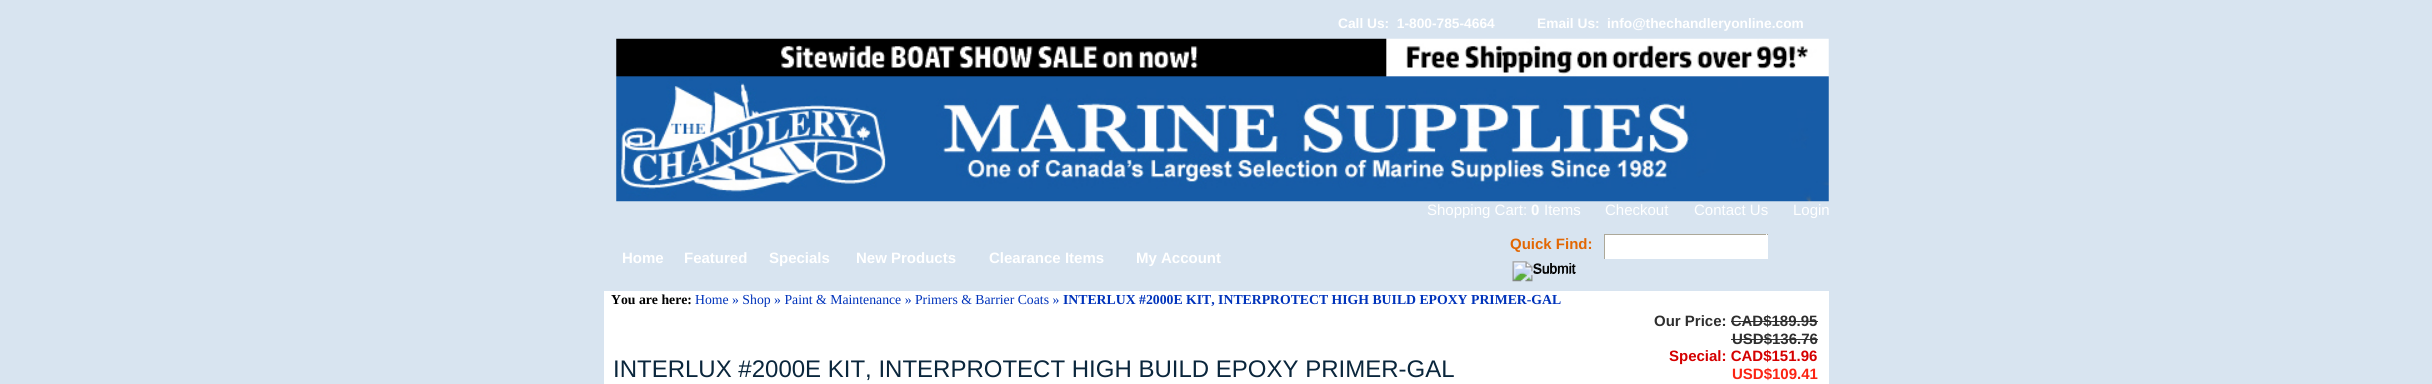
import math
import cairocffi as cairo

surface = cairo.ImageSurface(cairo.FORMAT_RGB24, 2432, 384)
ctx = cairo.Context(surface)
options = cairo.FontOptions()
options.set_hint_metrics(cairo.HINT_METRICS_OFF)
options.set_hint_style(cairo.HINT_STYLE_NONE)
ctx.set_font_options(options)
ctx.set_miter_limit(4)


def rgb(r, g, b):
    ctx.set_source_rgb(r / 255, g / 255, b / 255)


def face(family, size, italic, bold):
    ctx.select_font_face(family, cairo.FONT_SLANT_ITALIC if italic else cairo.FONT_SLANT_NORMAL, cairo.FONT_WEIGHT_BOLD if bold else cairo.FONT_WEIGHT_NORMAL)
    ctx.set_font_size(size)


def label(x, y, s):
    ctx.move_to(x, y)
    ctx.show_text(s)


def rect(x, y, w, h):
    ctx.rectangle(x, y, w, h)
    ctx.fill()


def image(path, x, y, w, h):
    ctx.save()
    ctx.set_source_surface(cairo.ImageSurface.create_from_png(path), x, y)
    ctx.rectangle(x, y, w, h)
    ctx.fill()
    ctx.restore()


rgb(216, 228, 240)
ctx.paint()
face('Liberation Sans', 13.75, 0, 1)
rgb(255, 255, 255)
label(1338, 28, 'Call Us:  1-800-785-4664')
label(1537, 28, 'Email Us:')
label(1607, 28, 'info@thechandleryonline.com')
image('image0.png', 616, 38, 1213, 164)
face('Liberation Sans', 15, 0, 0)
label(1427, 215, 'Shopping Cart:')
face('Liberation Sans', 15, 0, 1)
label(1531, 215, '0')
face('Liberation Sans', 15, 0, 0)
label(1544, 215, 'Items')
label(1605, 215, 'Checkout')
label(1694, 215, 'Contact Us')
label(1793, 215, 'Login')
face('Liberation Sans', 15, 0, 1)
label(622, 263, 'Home')
label(684, 263, 'Featured')
label(769, 263, 'Specials')
label(856, 263, 'New Products')
label(989, 263, 'Clearance Items')
label(1136, 263, 'My Account')
rgb(226, 103, 3)
label(1510, 249, 'Quick Find:')
rgb(255, 255, 255)
rect(1605, 235, 163, 24)
rgb(172, 168, 153)
rect(1604, 234, 164, 1)
rgb(255, 255, 255)
rect(1766, 234, 1, 1)
rgb(172, 168, 153)
rect(1604, 234, 1, 25)
image('image1.png', 1512, 261, 64, 21)
face('Liberation Sans', 13.75, 0, 0)
rgb(0, 0, 0)
label(1533, 273, 'Submit')
rgb(255, 255, 255)
rect(604, 291, 1225, 93)
face('Liberation Serif', 13.75, 0, 1)
rgb(0, 0, 0)
label(611, 304, 'You are here:')
face('Liberation Serif', 13.75, 0, 0)
rgb(0, 51, 187)
label(695, 304, 'Home » Shop » Paint & Maintenance » Primers & Barrier Coats »')
face('Liberation Serif', 13.75, 0, 1)
label(1063, 304, 'INTERLUX #2000E KIT, INTERPROTECT HIGH BUILD EPOXY PRIMER-GAL')
face('Liberation Sans', 24, 0, 0)
rgb(10, 38, 60)
label(613, 377, 'INTERLUX #2000E KIT, INTERPROTECT HIGH BUILD EPOXY PRIMER-GAL')
face('Liberation Sans', 15, 0, 1)
rgb(47, 47, 47)
label(1654, 326, 'Our Price: CAD$189.95')
rect(1731, 321, 87, 1)
label(1732, 344, 'USD$136.76')
rect(1731, 339, 87, 1)
rgb(213, 0, 0)
label(1669, 361, 'Special: CAD$151.96')
rgb(251, 35, 18)
label(1732, 379, 'USD$109.41')
surface.write_to_png('render.png')
